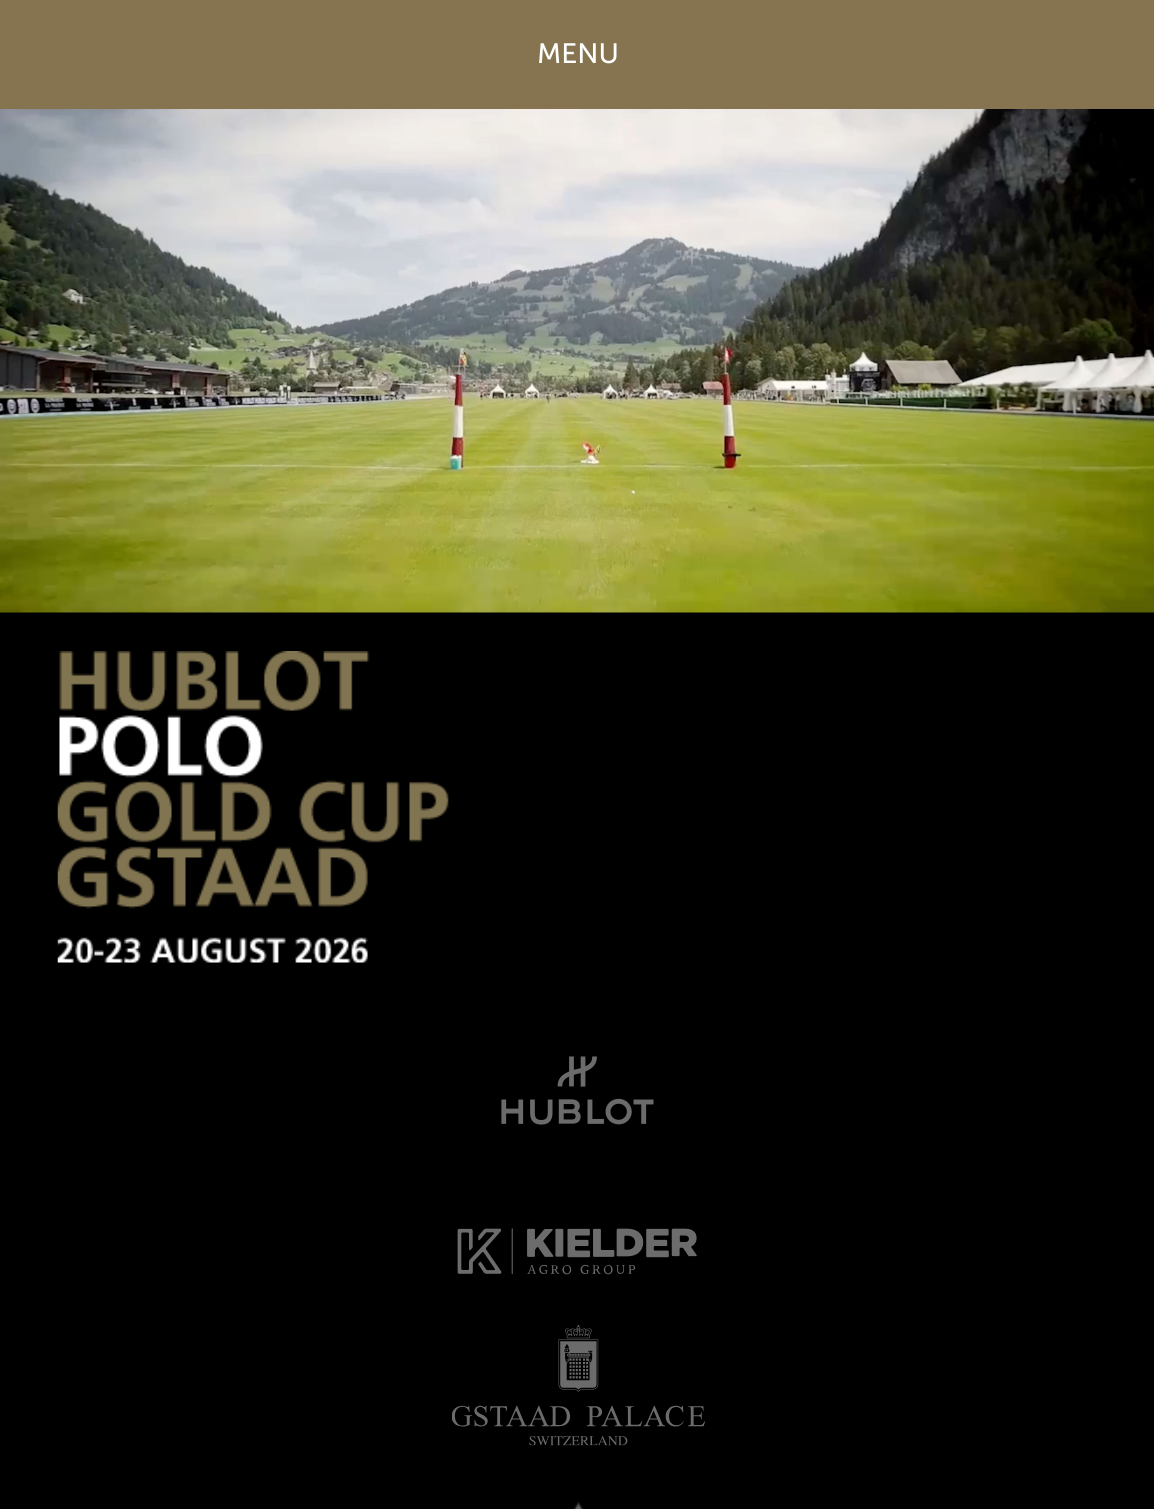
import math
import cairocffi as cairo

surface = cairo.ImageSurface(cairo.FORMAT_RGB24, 1154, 1509)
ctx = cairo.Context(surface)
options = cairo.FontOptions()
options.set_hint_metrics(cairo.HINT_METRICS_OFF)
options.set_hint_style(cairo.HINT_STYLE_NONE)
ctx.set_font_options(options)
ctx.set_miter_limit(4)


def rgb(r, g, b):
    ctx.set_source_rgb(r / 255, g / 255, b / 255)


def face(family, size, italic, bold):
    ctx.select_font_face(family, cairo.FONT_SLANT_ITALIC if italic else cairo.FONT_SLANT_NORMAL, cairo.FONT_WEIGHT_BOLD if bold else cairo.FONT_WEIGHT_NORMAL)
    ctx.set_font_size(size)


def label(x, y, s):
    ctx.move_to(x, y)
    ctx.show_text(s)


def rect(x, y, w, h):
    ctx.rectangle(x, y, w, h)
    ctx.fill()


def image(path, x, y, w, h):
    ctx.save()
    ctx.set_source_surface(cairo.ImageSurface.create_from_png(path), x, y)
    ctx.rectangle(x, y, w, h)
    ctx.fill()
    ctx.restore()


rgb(0, 0, 0)
ctx.paint()
rgb(133, 116, 79)
rect(0, 0, 1154, 109)
face('Museo Sans', 28, 0, 0)
rgb(255, 255, 255)
label(537, 63, 'MENU')
image('image0.png', 0, 109, 1154, 504)
image('image1.png', 57, 651, 392, 312)
image('image2.png', 501, 1056, 153, 69)
image('image3.png', 457, 1228, 240, 47)
image('image4.png', 452, 1325, 253, 121)
image('image5.png', 573, 1501, 11, 8)
surface.write_to_png('render.png')
